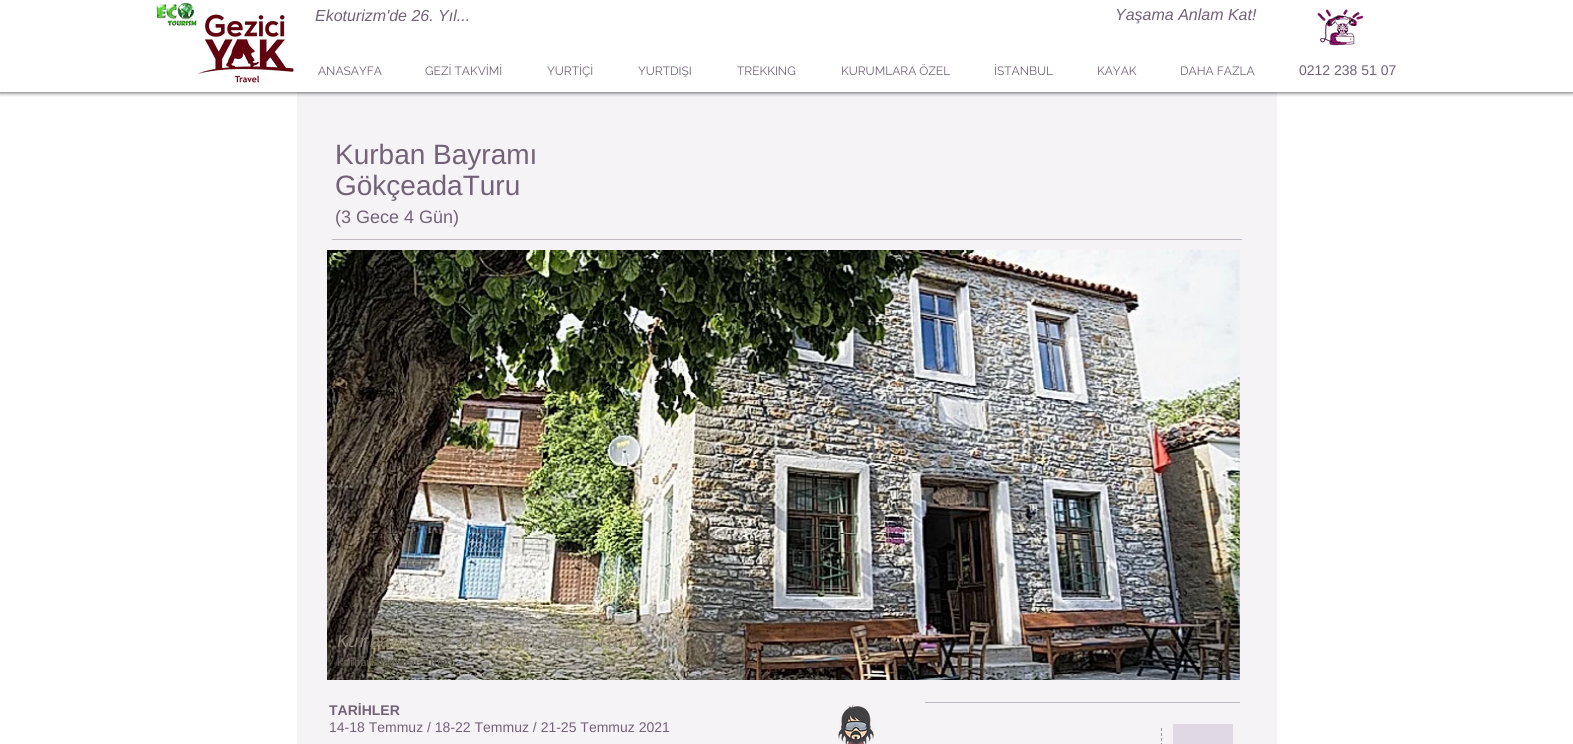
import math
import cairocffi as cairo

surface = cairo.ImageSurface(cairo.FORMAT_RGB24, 1573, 744)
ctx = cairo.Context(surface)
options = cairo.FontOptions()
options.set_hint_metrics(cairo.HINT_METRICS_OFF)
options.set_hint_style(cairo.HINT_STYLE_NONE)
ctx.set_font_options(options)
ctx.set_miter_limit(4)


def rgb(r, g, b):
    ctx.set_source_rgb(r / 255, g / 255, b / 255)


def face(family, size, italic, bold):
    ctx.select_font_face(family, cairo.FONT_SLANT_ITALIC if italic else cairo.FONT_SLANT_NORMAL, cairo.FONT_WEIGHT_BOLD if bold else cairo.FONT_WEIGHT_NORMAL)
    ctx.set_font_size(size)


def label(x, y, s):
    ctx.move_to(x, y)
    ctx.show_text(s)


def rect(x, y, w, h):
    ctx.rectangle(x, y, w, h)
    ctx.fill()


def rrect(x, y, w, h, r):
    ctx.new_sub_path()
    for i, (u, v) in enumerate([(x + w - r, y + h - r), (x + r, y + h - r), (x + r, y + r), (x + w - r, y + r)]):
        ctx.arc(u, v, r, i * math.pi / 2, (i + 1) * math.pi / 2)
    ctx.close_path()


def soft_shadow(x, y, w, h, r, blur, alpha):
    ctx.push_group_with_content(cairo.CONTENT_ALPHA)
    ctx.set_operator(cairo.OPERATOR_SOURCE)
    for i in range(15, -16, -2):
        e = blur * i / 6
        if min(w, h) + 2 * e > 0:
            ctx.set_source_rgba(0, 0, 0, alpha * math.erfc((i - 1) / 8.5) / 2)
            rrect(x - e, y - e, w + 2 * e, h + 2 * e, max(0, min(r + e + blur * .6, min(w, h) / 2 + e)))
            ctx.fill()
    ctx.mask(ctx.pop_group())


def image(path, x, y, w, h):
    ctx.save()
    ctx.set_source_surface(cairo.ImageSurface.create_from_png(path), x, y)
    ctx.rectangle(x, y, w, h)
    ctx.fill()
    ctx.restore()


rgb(255, 255, 255)
ctx.paint()
rgb(245, 243, 246)
rect(297, 92, 980, 652)
ctx.save()
ctx.rectangle(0, 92, 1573, 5)
ctx.clip()
rgb(0, 0, 0)
soft_shadow(0, 1, 1573, 92, 0, 2, 0.6)
ctx.restore()
image('image0.png', 156, 2, 41, 24)
image('image1.png', 198, 14, 96, 69)
face('Liberation Sans', 16, 1, 0)
rgb(114, 98, 119)
label(315, 21, 'Ekoturizm\'de 26. Yıl...')
label(1115, 20, 'Yaşama Anlam Kat!')
image('image2.png', 1317, 9, 47, 38)
face('Raleway', 12, 0, 0)
label(318, 75, 'ANASAYFA')
label(425, 75, 'GEZİ TAKVİMİ')
label(547, 75, 'YURTİÇİ')
label(638, 75, 'YURTDIŞI')
label(737, 75, 'TREKKING')
label(841, 75, 'KURUMLARA ÖZEL')
label(994, 75, 'İSTANBUL')
label(1097, 75, 'KAYAK')
label(1180, 75, 'DAHA FAZLA')
face('Liberation Sans', 14, 0, 0)
label(1299, 75, '0212 238 51 07')
face('Liberation Sans', 28, 0, 0)
label(335, 164, 'Kurban Bayramı')
label(335, 195, 'GökçeadaTuru')
face('Liberation Sans', 18, 0, 0)
label(335, 223, '(3 Gece 4 Gün)')
rgb(193, 185, 195)
rect(332, 239, 910, 1)
image('image3.png', 327, 250, 913, 430)
face('Liberation Mono', 18, 1, 0)
rgb(138, 132, 117)
label(337, 647, 'Kurban Bayramı Gökçeada Turu')
face('Basic', 12, 0, 0)
rgb(93, 89, 79)
label(337, 666, 'Kurban Bayramı Turları')
face('Liberation Sans', 12, 0, 0)
rgb(56, 52, 45)
label(1213, 667, '1/3')
rgb(193, 185, 195)
rect(925, 702, 315, 1)
face('Liberation Sans', 14, 0, 1)
rgb(114, 98, 119)
label(329, 715, 'TARİHLER')
face('Liberation Sans', 14, 0, 0)
label(329, 732, '14-18 Temmuz / 18-22 Temmuz / 21-25 Temmuz 2021')
image('image4.png', 838, 704, 36, 40)
ctx.new_path()
ctx.move_to(1161.5, 728)
ctx.line_to(1161.5, 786)
rgb(160, 143, 166)
ctx.set_line_width(1)
ctx.set_dash([3, 2])
ctx.stroke()
rgb(224, 216, 226)
rect(1173, 724, 60, 20)
surface.write_to_png('render.png')
